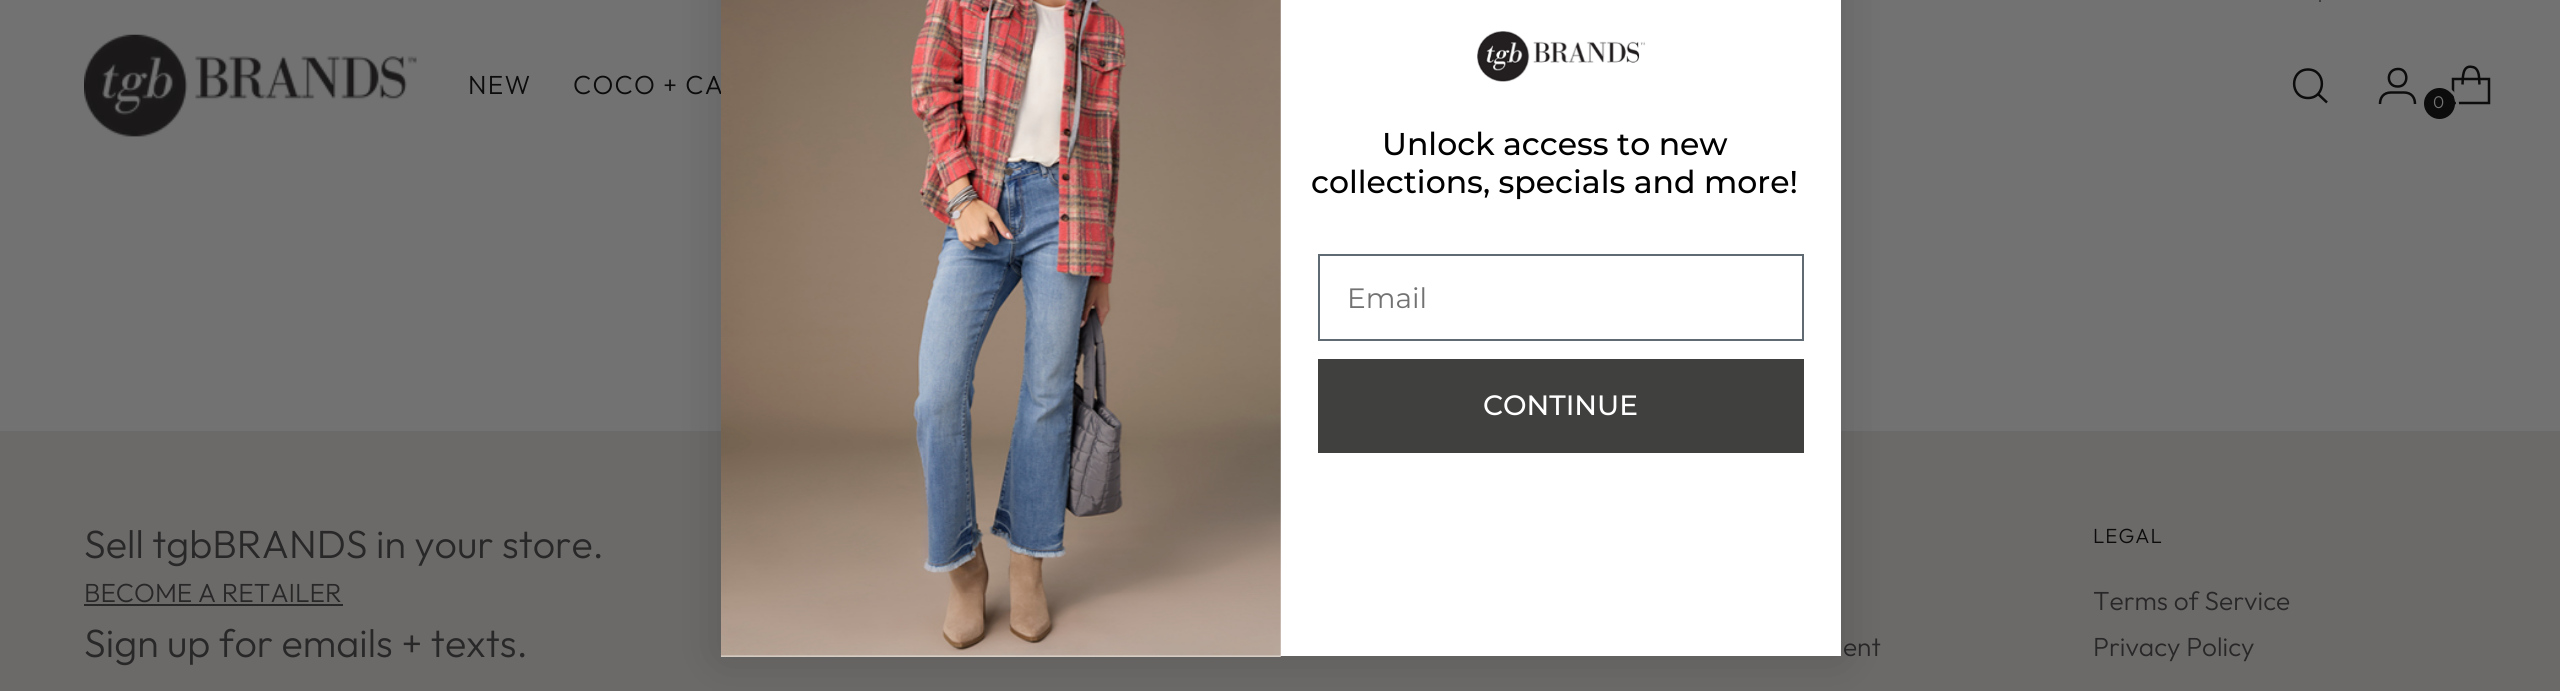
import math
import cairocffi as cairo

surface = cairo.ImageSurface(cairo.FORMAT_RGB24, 2560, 691)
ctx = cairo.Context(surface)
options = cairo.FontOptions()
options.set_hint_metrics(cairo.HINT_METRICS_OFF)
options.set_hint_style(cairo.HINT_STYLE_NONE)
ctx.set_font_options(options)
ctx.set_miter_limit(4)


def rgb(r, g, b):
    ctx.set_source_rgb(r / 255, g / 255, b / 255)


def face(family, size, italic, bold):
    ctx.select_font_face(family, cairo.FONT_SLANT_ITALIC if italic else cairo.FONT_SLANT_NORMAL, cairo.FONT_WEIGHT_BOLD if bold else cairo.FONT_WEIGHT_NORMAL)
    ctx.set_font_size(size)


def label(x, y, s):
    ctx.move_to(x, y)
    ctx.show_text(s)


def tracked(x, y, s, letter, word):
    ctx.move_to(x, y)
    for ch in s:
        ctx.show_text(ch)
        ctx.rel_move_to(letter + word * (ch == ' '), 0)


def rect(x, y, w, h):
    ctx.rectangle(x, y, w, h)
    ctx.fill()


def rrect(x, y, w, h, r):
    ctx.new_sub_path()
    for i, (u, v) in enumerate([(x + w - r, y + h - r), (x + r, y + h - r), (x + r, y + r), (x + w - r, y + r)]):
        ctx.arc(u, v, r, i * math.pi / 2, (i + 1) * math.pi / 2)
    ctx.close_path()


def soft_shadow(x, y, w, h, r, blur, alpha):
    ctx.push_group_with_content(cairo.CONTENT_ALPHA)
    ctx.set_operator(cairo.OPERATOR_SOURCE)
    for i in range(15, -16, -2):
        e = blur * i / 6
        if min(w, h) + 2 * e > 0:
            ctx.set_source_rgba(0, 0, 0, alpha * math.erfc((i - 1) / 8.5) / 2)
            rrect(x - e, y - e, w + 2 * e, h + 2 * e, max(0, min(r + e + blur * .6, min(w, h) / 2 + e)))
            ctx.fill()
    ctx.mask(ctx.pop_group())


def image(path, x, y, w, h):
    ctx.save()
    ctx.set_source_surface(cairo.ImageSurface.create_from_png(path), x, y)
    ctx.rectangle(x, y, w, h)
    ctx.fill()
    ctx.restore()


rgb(114, 114, 114)
ctx.paint()
rgb(63, 63, 63)
rect(2319, 0, 2, 2)
image('image0.png', 84, 34, 333, 103)
face('Outfit Light', 26.25, 0, 0)
rgb(12, 12, 12)
tracked(468, 94, 'NEW', 1.25, 0)
tracked(573, 94, 'COCO + CA', 1.25, 0)
ctx.new_path()
ctx.move_to(2308, 98)
ctx.curve_to(2326.5, 98, 2326.5, 69.5, 2308, 69.5)
ctx.curve_to(2289.5, 69.5, 2289.5, 98, 2308, 98)
ctx.close_path()
ctx.set_line_width(2.5)
ctx.set_line_cap(cairo.LINE_CAP_ROUND)
ctx.stroke()
ctx.new_path()
ctx.move_to(2318, 94)
ctx.line_to(2327, 102.5)
ctx.set_line_cap(cairo.LINE_CAP_BUTT)
ctx.stroke()
ctx.new_path()
ctx.move_to(2397.5, 86.5)
ctx.curve_to(2409.5, 87, 2409, 68, 2397.5, 69)
ctx.curve_to(2386, 69.5, 2386, 86.5, 2397.5, 86.5)
ctx.close_path()
ctx.move_to(2380, 104)
ctx.curve_to(2380, 97.5, 2383.5, 92.5, 2391, 92.5)
ctx.line_to(2404, 92.5)
ctx.curve_to(2411.5, 92.5, 2415, 97.5, 2415, 104)
ctx.stroke()
ctx.new_path()
ctx.move_to(2479.5, 84.5)
ctx.curve_to(2479, 80.5, 2479.5, 76, 2478, 72)
ctx.curve_to(2477, 69.5, 2475.5, 67.5, 2472.5, 67)
ctx.curve_to(2462, 64.5, 2463, 78, 2462.5, 84.5)
ctx.set_line_join(cairo.LINE_JOIN_BEVEL)
ctx.stroke()
ctx.new_path()
ctx.move_to(2489, 103)
ctx.line_to(2489, 79)
ctx.line_to(2453, 79)
ctx.line_to(2453, 103)
ctx.close_path()
ctx.set_line_join(cairo.LINE_JOIN_MITER)
ctx.stroke()
ctx.arc(2440.5, 104.5, 17, 0, 2 * math.pi)
rgb(114, 114, 114)
ctx.set_line_width(3)
ctx.stroke()
rgb(12, 12, 12)
ctx.arc(2439.5, 103.5, 15.5, 0, 2 * math.pi)
ctx.fill()
face('Outfit Light', 17, 0, 0)
rgb(114, 114, 114)
label(2433, 108, '0')
rgb(108, 106, 105)
rect(0, 431, 2560, 260)
face('Outfit Light', 39.4, 0, 0)
rgb(41, 40, 40)
label(84, 558, 'Sell tgbBRANDS in your store.')
face('Outfit Light', 26.25, 0, 0)
label(84, 602, 'BECOME A RETAILER')
rect(84, 604, 259, 2)
face('Outfit Light', 39.4, 0, 0)
label(84, 657, 'Sign up for emails + texts.')
face('Outfit Light', 26.25, 0, 0)
label(1843, 656, 'ent')
face('Outfit Light', 20.5, 0, 0)
rgb(12, 12, 12)
tracked(2093, 543, 'LEGAL', 1, 0)
face('Outfit Light', 26.25, 0, 0)
rgb(41, 40, 40)
label(2093, 610, 'Terms of Service')
label(2093, 656, 'Privacy Policy')
rgb(0, 0, 0)
soft_shadow(721, -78, 1120, 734, 0, 26, 0.15)
rgb(255, 255, 255)
rect(1280, 0, 561, 656)
image('image1.png', 721, 0, 560, 657)
image('image2.png', 1477, 31, 169, 51)
face('Montserrat Medium', 31.5, 0, 0)
rgb(0, 0, 0)
label(1382, 155, 'Unlock access to new')
label(1311, 193, 'collections, specials and more!')
ctx.rectangle(1319, 255, 484, 85)
rgb(96, 106, 114)
ctx.set_line_width(2)
ctx.stroke()
face('Montserrat', 28, 0, 0)
rgb(114, 114, 114)
label(1347, 308, 'Email')
rgb(64, 65, 63)
rect(1318, 359, 486, 94)
face('Montserrat Medium', 28, 0, 0)
rgb(255, 255, 255)
label(1483, 415, 'CONTINUE')
surface.write_to_png('render.png')
